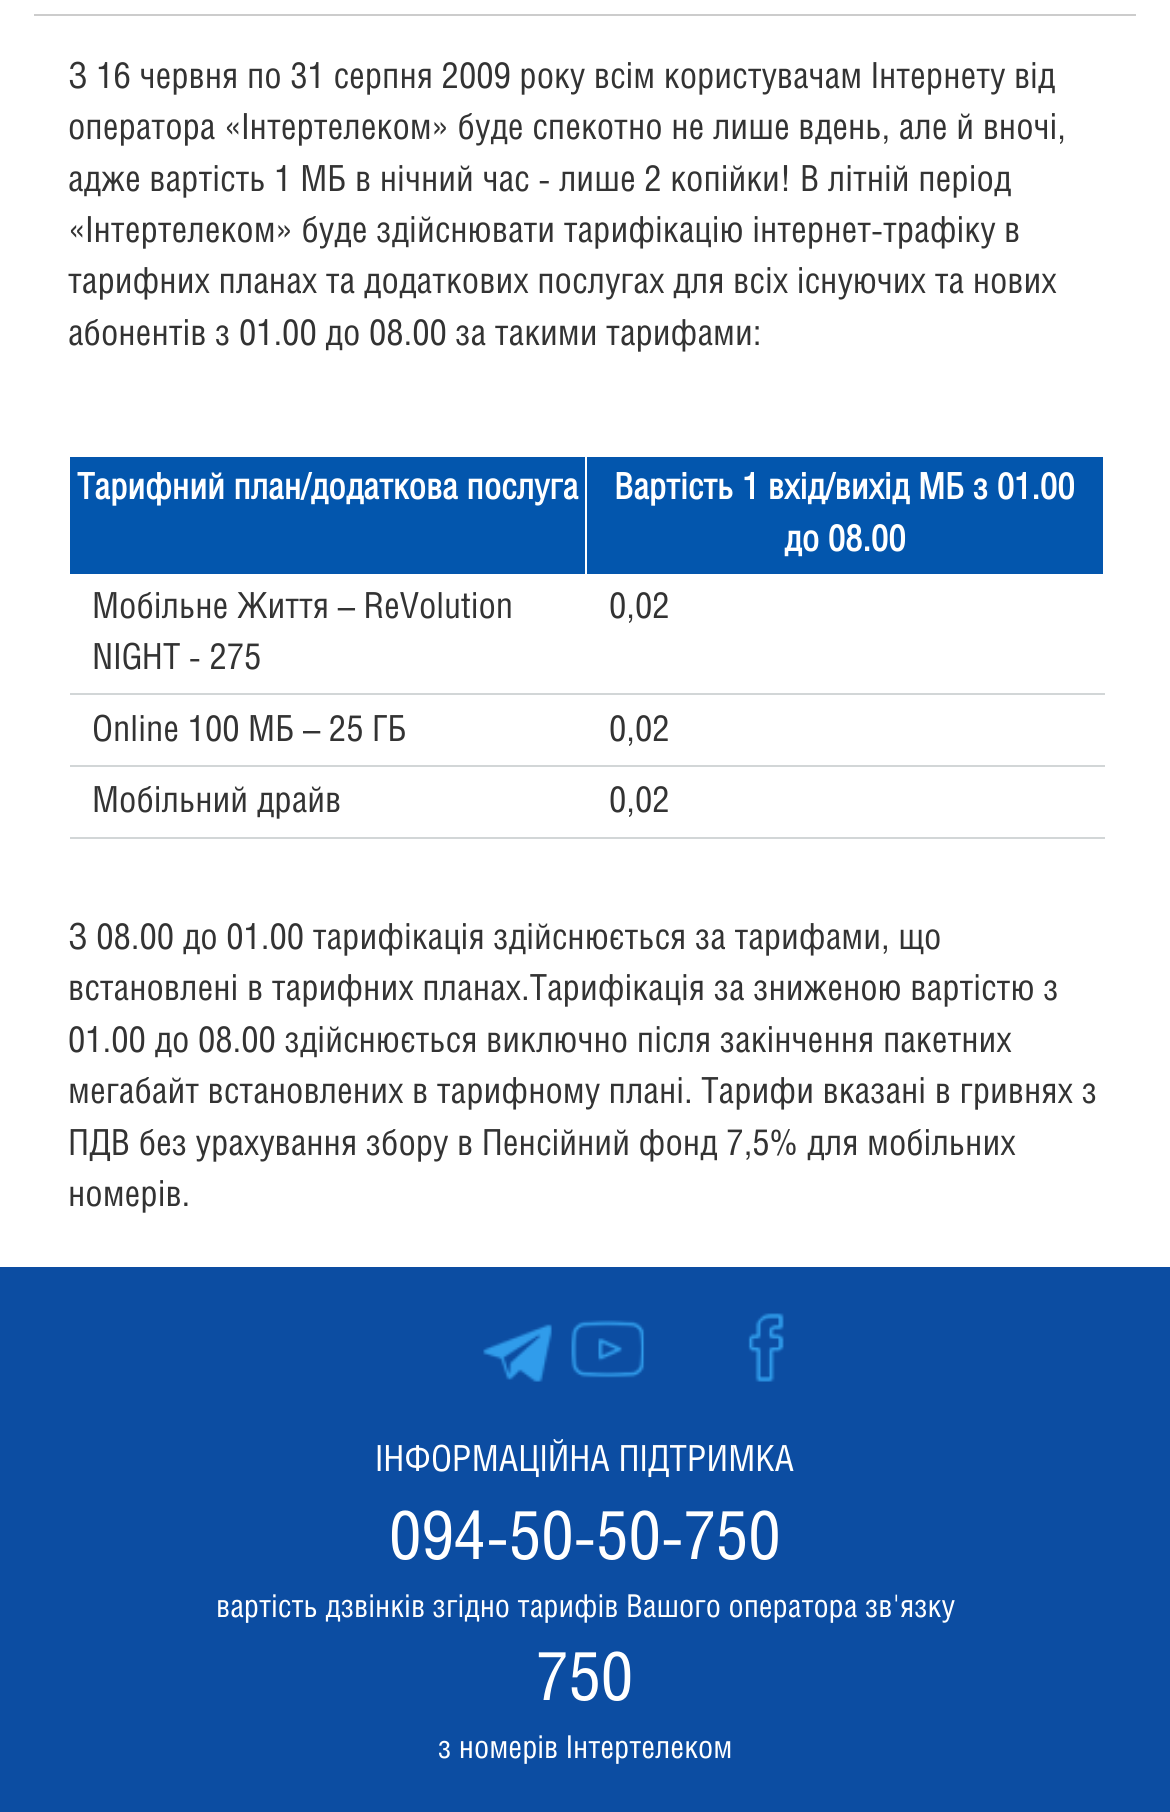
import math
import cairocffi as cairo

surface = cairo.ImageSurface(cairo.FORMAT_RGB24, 1170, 1812)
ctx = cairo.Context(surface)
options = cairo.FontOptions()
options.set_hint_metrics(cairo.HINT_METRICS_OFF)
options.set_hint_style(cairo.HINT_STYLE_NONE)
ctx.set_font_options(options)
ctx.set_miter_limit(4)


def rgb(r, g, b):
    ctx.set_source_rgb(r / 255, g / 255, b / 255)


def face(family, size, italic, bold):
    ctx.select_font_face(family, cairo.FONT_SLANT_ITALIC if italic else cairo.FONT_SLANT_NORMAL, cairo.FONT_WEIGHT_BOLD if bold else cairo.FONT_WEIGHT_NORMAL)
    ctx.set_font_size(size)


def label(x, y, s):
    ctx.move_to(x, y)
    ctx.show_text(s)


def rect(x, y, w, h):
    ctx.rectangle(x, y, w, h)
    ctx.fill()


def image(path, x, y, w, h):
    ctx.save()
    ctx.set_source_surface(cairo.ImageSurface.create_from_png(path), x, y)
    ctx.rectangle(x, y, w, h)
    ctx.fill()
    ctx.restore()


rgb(255, 255, 255)
ctx.paint()
rgb(204, 204, 204)
rect(34, 14, 1102, 2)
face('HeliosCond', 36, 0, 0)
rgb(51, 51, 51)
label(68, 88, 'З 16 червня по 31 серпня 2009 року всім користувачам Інтернету від')
label(68, 139, 'оператора «Інтертелеком» буде спекотно не лише вдень, але й вночі,')
label(68, 191, 'адже вартість 1 МБ в нічний час - лише 2 копійки! В літній період')
label(68, 242, '«Інтертелеком» буде здійснювати тарифікацію інтернет-трафіку в')
label(68, 293, 'тарифних планах та додаткових послугах для всіх існуючих та нових')
label(68, 345, 'абонентів з 01.00 до 08.00 за такими тарифами:')
rgb(3, 86, 173)
rect(70, 457, 515, 117)
face('HeliosCond', 36, 0, 1)
rgb(255, 255, 255)
label(77, 499, 'Тарифний план/додаткова послуга')
rgb(3, 86, 173)
rect(587, 457, 516, 117)
rgb(255, 255, 255)
label(614, 499, 'Вартість 1 вхід/вихід МБ з 01.00')
label(784, 551, 'до 08.00')
rgb(210, 214, 215)
rect(585, 693, 520, 2)
rgb(255, 255, 255)
rect(585, 693, 2, 2)
rgb(210, 214, 215)
rect(68, 693, 519, 2)
rgb(255, 255, 255)
rect(68, 693, 2, 2)
face('HeliosCond', 36, 0, 0)
rgb(51, 51, 51)
label(92, 618, 'Мобільне Життя – ReVolution')
label(92, 669, 'NIGHT - 275')
label(609, 618, '0,02')
rgb(210, 214, 215)
rect(585, 765, 520, 2)
rgb(255, 255, 255)
rect(585, 765, 2, 2)
rgb(210, 214, 215)
rect(68, 765, 519, 2)
rgb(255, 255, 255)
rect(68, 765, 2, 2)
rgb(51, 51, 51)
label(92, 741, 'Online 100 МБ – 25 ГБ')
label(609, 741, '0,02')
rgb(210, 214, 215)
rect(585, 837, 520, 2)
rgb(255, 255, 255)
rect(585, 837, 2, 2)
rgb(210, 214, 215)
rect(68, 837, 519, 2)
rgb(255, 255, 255)
rect(68, 837, 2, 2)
rgb(51, 51, 51)
label(92, 812, 'Мобільний драйв')
label(609, 812, '0,02')
label(68, 949, 'З 08.00 до 01.00 тарифікація здійснюється за тарифами, що')
label(68, 1000, 'встановлені в тарифних планах.Тарифікація за зниженою вартістю з')
label(68, 1052, '01.00 до 08.00 здійснюється виключно після закінчення пакетних')
label(68, 1103, 'мегабайт встановлених в тарифному плані. Тарифи вказані в гривнях з')
label(68, 1155, 'ПДВ без урахування збору в Пенсійний фонд 7,5% для мобільних')
label(68, 1206, 'номерів.')
rgb(12, 77, 162)
rect(0, 1267, 1170, 545)
image('image0.png', 483, 1324, 69, 58)
image('image1.png', 571, 1320, 74, 58)
image('image2.png', 748, 1313, 36, 69)
rgb(255, 255, 255)
label(375, 1471, 'ІНФОРМАЦІЙНА ПІДТРИМКА')
face('HeliosCond', 67.5, 0, 0)
label(389, 1559, '094-50-50-750')
face('HeliosCond', 31.5, 0, 0)
label(216, 1617, 'вартість дзвінків згідно тарифів Вашого оператора зв\'язку')
face('HeliosCond', 67.5, 0, 0)
label(536, 1700, '750')
face('HeliosCond', 31.5, 0, 0)
label(438, 1758, 'з номерів Інтертелеком')
surface.write_to_png('render.png')
